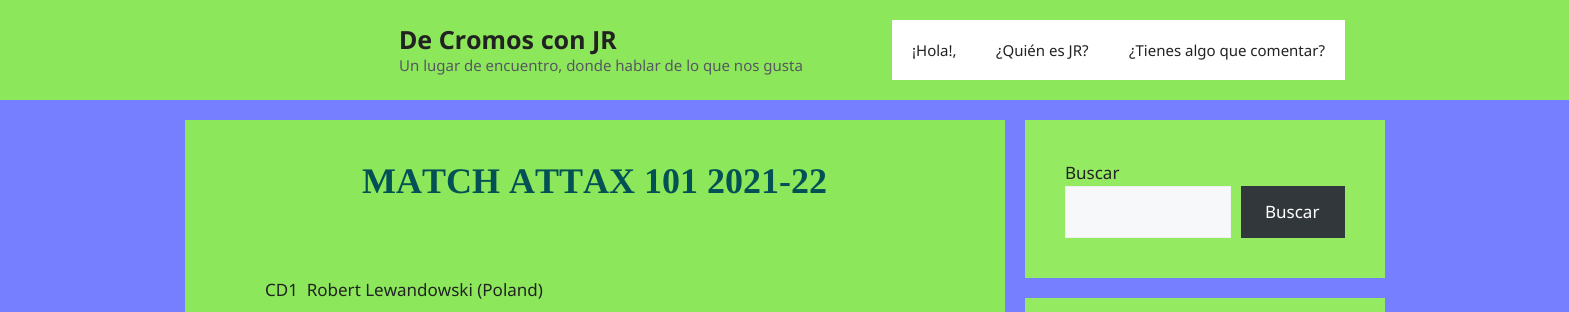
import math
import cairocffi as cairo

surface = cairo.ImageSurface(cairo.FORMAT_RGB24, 1569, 312)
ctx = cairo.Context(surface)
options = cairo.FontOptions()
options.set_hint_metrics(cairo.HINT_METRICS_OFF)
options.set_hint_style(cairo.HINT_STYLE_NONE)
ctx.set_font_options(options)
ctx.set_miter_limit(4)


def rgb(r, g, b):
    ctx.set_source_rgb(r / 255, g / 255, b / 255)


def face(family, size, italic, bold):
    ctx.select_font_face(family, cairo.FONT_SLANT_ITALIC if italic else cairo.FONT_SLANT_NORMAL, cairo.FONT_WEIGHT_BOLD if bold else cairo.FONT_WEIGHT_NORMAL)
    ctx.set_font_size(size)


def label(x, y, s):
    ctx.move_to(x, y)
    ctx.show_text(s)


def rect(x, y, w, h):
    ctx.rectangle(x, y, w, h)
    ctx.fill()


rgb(118, 127, 255)
ctx.paint()
rgb(140, 232, 90)
rect(0, 0, 1569, 100)
face('Noto Sans', 25, 0, 1)
rgb(34, 34, 34)
label(399, 49, 'De Cromos con JR')
face('Noto Sans', 15, 0, 0)
rgb(87, 87, 96)
label(399, 71, 'Un lugar de encuentro, donde hablar de lo que nos gusta')
rgb(255, 255, 255)
rect(892, 20, 453, 60)
rgb(34, 34, 34)
label(912, 56, '¡Hola!,')
label(996, 56, '¿Quién es JR?')
label(1129, 56, '¿Tienes algo que comentar?')
rgb(140, 232, 90)
rect(185, 120, 820, 192)
face('Liberation Serif', 36, 0, 1)
rgb(3, 81, 84)
label(362, 193, 'MATCH ATTAX 101 2021-22')
face('Noto Sans', 17, 0, 0)
rgb(34, 34, 34)
label(265, 296, 'CD1  Robert Lewandowski (Poland)')
rgb(148, 235, 98)
rect(1025, 120, 360, 158)
rgb(34, 34, 34)
label(1065, 179, 'Buscar')
rgb(247, 248, 249)
ctx.rectangle(1065.5, 186.5, 165, 51)
ctx.fill_preserve()
rgb(240, 240, 240)
ctx.set_line_width(1)
ctx.stroke()
rgb(50, 55, 60)
rect(1241, 186, 104, 52)
rgb(255, 255, 255)
label(1265, 218, 'Buscar')
rgb(148, 235, 98)
rect(1025, 298, 360, 14)
surface.write_to_png('render.png')
